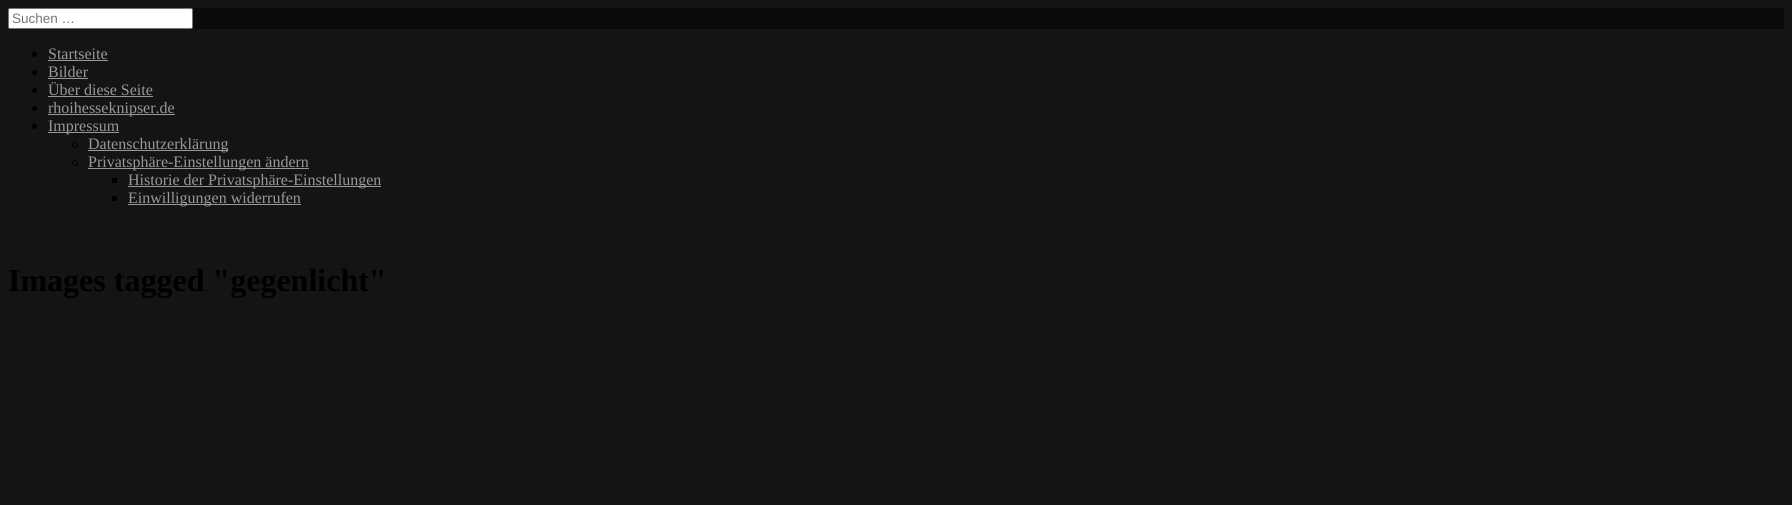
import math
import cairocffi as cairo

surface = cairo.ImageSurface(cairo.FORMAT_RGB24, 1792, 505)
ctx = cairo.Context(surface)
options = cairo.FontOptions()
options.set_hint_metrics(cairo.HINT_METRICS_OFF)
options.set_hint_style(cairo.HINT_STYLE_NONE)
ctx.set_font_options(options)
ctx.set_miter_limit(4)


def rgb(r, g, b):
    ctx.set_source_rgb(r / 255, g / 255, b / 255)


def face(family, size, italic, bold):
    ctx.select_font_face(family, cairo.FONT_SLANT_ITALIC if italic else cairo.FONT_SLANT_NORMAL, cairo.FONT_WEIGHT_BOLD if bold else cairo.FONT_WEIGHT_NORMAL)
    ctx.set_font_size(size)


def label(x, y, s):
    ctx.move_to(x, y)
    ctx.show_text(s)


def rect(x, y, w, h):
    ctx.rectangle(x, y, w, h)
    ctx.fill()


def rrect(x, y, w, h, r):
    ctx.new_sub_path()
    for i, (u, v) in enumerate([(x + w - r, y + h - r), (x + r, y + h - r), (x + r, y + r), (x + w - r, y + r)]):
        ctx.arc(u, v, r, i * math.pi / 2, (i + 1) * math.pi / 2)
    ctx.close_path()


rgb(20, 20, 20)
ctx.paint()
rgb(10, 10, 10)
rect(8, 8, 1776, 21)
rgb(255, 255, 255)
rrect(8.5, 8.5, 184, 20, 1.5)
ctx.fill_preserve()
rgb(118, 118, 118)
ctx.set_line_width(1)
ctx.stroke()
face('Liberation Sans', 13.5, 0, 0)
rgb(117, 117, 117)
label(12, 23, 'Suchen …')
rgb(0, 0, 0)
ctx.new_path()
ctx.arc(34.5, 54.5, 2.5, 0, 2 * math.pi)
ctx.fill()
face('Liberation Serif', 16, 0, 0)
rgb(153, 153, 153)
label(48, 59, 'Startseite')
rect(48, 60, 60, 1)
rgb(0, 0, 0)
ctx.new_path()
ctx.arc(34.5, 72.5, 2.5, 0, 2 * math.pi)
ctx.fill()
rgb(153, 153, 153)
label(48, 77, 'Bilder')
rect(48, 78, 40, 1)
rgb(0, 0, 0)
ctx.new_path()
ctx.arc(34.5, 90.5, 2.5, 0, 2 * math.pi)
ctx.fill()
rgb(153, 153, 153)
label(48, 95, 'Über diese Seite')
rect(48, 96, 105, 1)
rgb(0, 0, 0)
ctx.new_path()
ctx.arc(34.5, 108.5, 2.5, 0, 2 * math.pi)
ctx.fill()
rgb(153, 153, 153)
rect(48, 114, 127, 1)
label(48, 113, 'rhoihesseknipser.de')
rgb(0, 0, 0)
ctx.new_path()
ctx.arc(34.5, 126.5, 2.5, 0, 2 * math.pi)
ctx.fill()
rgb(153, 153, 153)
rect(48, 132, 71, 1)
label(48, 131, 'Impressum')
ctx.new_path()
ctx.arc(75, 145, 2.5, 0, 2 * math.pi)
rgb(0, 0, 0)
ctx.stroke()
rgb(153, 153, 153)
rect(88, 150, 140, 1)
label(88, 149, 'Datenschutzerklärung')
ctx.new_path()
ctx.arc(75, 163, 2.5, 0, 2 * math.pi)
rgb(0, 0, 0)
ctx.stroke()
rgb(153, 153, 153)
rect(88, 168, 221, 1)
label(88, 167, 'Privatsphäre-Einstellungen ändern')
rgb(0, 0, 0)
rect(112, 178, 5, 5)
rgb(153, 153, 153)
rect(128, 186, 253, 1)
label(128, 185, 'Historie der Privatsphäre-Einstellungen')
rgb(0, 0, 0)
rect(112, 196, 5, 5)
rgb(153, 153, 153)
rect(128, 204, 173, 1)
label(128, 203, 'Einwilligungen widerrufen')
face('Liberation Serif', 32, 0, 1)
rgb(0, 0, 0)
label(8, 291, 'Images tagged "gegenlicht"')
surface.write_to_png('render.png')
